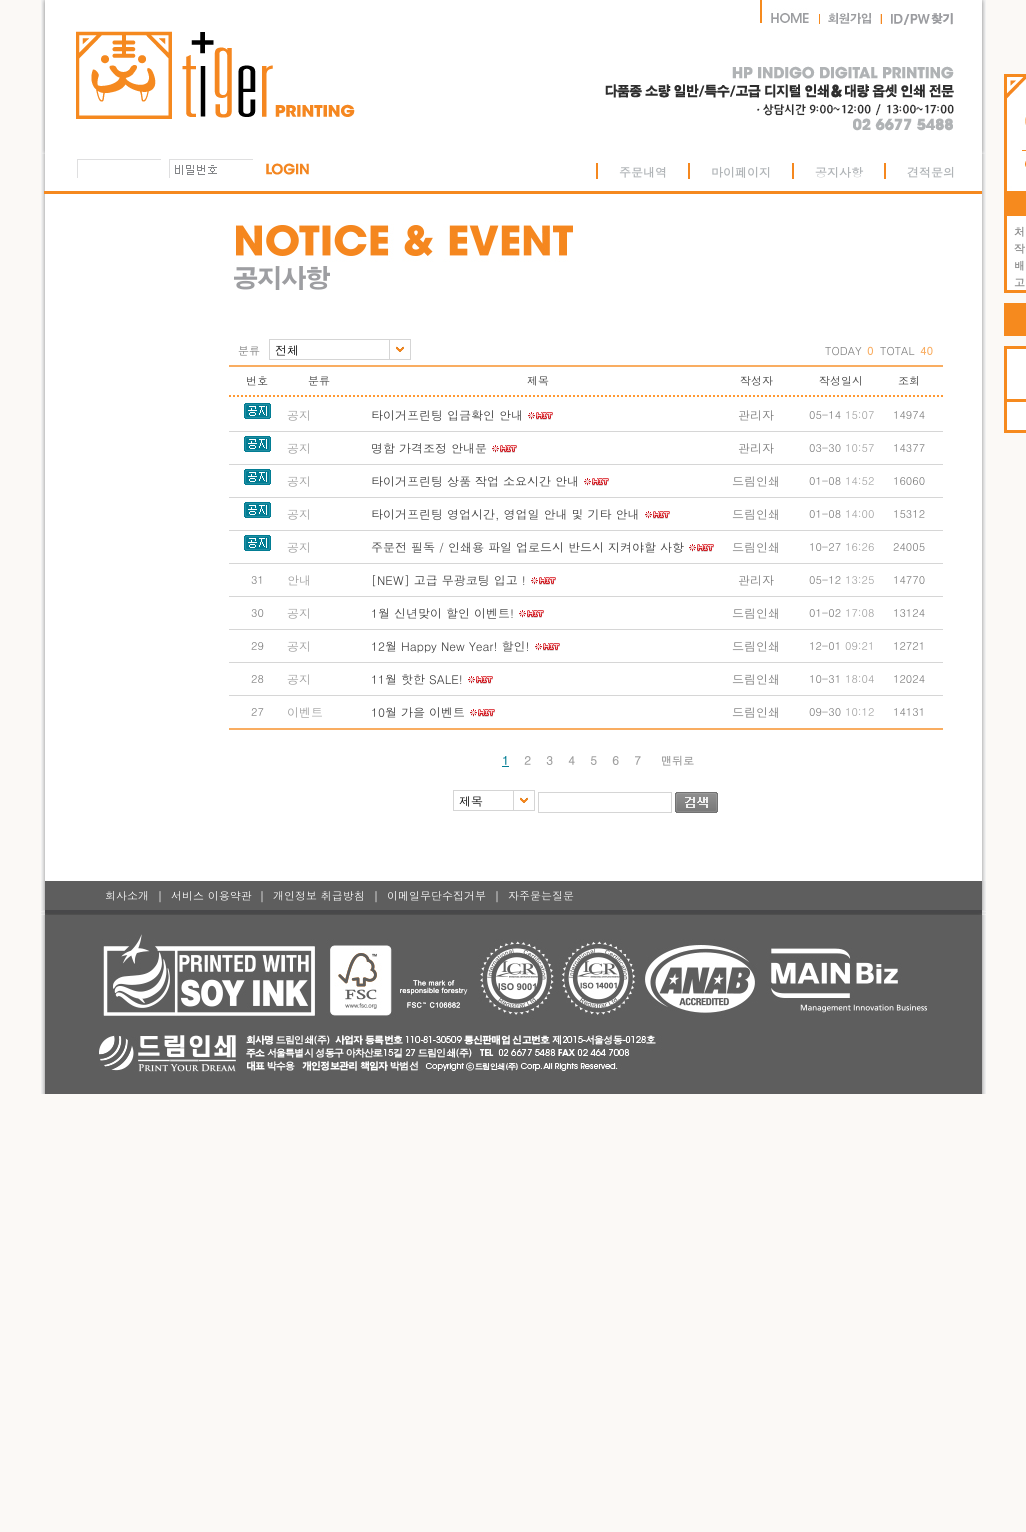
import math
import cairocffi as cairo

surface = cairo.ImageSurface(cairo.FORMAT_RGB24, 1026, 1532)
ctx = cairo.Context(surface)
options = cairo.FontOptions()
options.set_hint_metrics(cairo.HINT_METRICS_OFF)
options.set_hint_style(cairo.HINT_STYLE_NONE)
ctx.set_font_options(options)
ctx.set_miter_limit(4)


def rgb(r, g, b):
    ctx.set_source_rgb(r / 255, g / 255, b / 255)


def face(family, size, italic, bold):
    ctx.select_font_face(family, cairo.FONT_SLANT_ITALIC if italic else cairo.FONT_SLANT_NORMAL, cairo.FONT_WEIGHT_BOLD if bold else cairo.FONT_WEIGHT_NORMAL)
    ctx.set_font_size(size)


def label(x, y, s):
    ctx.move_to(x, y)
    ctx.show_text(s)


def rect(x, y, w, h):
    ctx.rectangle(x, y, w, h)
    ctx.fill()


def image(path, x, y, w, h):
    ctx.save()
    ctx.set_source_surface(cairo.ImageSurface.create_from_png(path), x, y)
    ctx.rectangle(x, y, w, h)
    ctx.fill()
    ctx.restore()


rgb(251, 249, 246)
ctx.paint()
image('image0.png', 41, 0, 945, 194)
image('image1.png', 42, 0, 943, 154)
image('image2.png', 760, 0, 49, 23)
image('image3.png', 819, 12, 52, 12)
image('image4.png', 880, 13, 73, 12)
rgb(223, 223, 224)
rect(77, 159, 84, 1)
rect(77, 159, 1, 19)
image('image5.png', 175, 165, 42, 10)
rect(169, 159, 84, 1)
rect(169, 159, 1, 19)
image('image6.png', 266, 163, 43, 12)
rgb(245, 136, 31)
rect(596, 163, 2, 16)
face('Dotum', 12, 0, 1)
rgb(176, 180, 183)
label(619, 177, '주문내역')
rgb(245, 136, 31)
rect(688, 163, 2, 16)
rgb(176, 180, 183)
label(711, 177, '마이페이지')
rgb(245, 136, 31)
rect(792, 163, 2, 16)
rgb(176, 180, 183)
label(815, 177, '공지사항')
rgb(245, 136, 31)
rect(884, 163, 2, 16)
rgb(176, 180, 183)
label(907, 177, '견적문의')
rgb(245, 137, 31)
rect(44, 191, 938, 3)
image('image7.png', 41, 194, 945, 687)
image('image8.png', 234, 224, 339, 66)
image('image9.png', 1004, 74, 22, 148)
rgb(255, 255, 255)
rect(1007, 222, 19, 68)
rgb(246, 138, 30)
rect(1004, 222, 3, 68)
face('Dotum', 11, 0, 1)
rgb(141, 141, 141)
label(1014, 236, '처')
label(1014, 253, '작')
label(1014, 270, '배')
label(1014, 287, '고')
rgb(246, 138, 30)
rect(1004, 290, 22, 3)
rect(1004, 303, 22, 33)
rect(1004, 346, 22, 3)
rgb(255, 255, 255)
rect(1007, 349, 19, 81)
rgb(246, 138, 30)
rect(1004, 349, 3, 84)
rect(1007, 430, 19, 3)
rect(1007, 399, 19, 3)
face('Dotum', 11, 0, 0)
rgb(120, 120, 120)
label(238, 355, '분류')
ctx.rectangle(269.5, 339.5, 141, 20)
rgb(213, 213, 213)
ctx.set_line_width(1)
ctx.stroke()
face('Dotum', 12, 0, 0)
rgb(0, 0, 0)
label(275, 355, '전체')
image('image10.png', 396, 346, 8, 6)
rgb(213, 213, 213)
rect(389, 340, 1, 19)
face('Dotum', 11, 0, 0)
rgb(120, 120, 120)
label(825, 355, 'TODAY')
face('Dotum', 11, 0, 1)
rgb(249, 173, 97)
label(867, 355, '0')
face('Dotum', 11, 0, 0)
rgb(120, 120, 120)
label(880, 355, 'TOTAL')
face('Dotum', 11, 0, 1)
rgb(249, 173, 97)
label(920, 355, '40')
rect(229, 365, 714, 2)
face('Dotum', 11, 0, 0)
rgb(58, 58, 58)
label(246, 385, '번호')
label(308, 385, '분류')
label(527, 385, '제목')
label(740, 385, '작성자')
label(819, 385, '작성일시')
label(898, 385, '조회')
ctx.new_path()
ctx.move_to(229, 396)
ctx.line_to(943, 396)
rgb(255, 153, 51)
ctx.set_line_width(2)
ctx.set_dash([2, 2])
ctx.stroke()
image('image11.png', 244, 403, 27, 16)
face('Dotum', 12, 0, 0)
rgb(158, 158, 158)
label(287, 420, '공지')
rgb(58, 58, 58)
label(371, 420, '타이거프린팅 입금확인 안내')
image('image12.png', 528, 412, 25, 8)
rgb(120, 120, 120)
label(738, 420, '관리자')
face('Dotum', 11, 0, 0)
label(809, 419, '05-14')
rgb(158, 158, 158)
label(845, 419, '15:07')
rgb(120, 120, 120)
label(893, 419, '14974')
rgb(214, 214, 214)
rect(229, 431, 714, 1)
image('image11.png', 244, 436, 27, 16)
face('Dotum', 12, 0, 0)
rgb(158, 158, 158)
label(287, 453, '공지')
rgb(58, 58, 58)
label(371, 453, '명함 가격조정 안내문')
image('image12.png', 492, 445, 25, 8)
rgb(120, 120, 120)
label(738, 453, '관리자')
face('Dotum', 11, 0, 0)
label(809, 452, '03-30')
rgb(158, 158, 158)
label(845, 452, '10:57')
rgb(120, 120, 120)
label(893, 452, '14377')
rgb(214, 214, 214)
rect(229, 464, 714, 1)
image('image11.png', 244, 469, 27, 16)
face('Dotum', 12, 0, 0)
rgb(158, 158, 158)
label(287, 486, '공지')
rgb(58, 58, 58)
label(371, 486, '타이거프린팅 상품 작업 소요시간 안내')
image('image12.png', 584, 478, 25, 8)
rgb(120, 120, 120)
label(732, 486, '드림인쇄')
face('Dotum', 11, 0, 0)
label(809, 485, '01-08')
rgb(158, 158, 158)
label(845, 485, '14:52')
rgb(120, 120, 120)
label(893, 485, '16060')
rgb(214, 214, 214)
rect(229, 497, 714, 1)
image('image11.png', 244, 502, 27, 16)
face('Dotum', 12, 0, 0)
rgb(158, 158, 158)
label(287, 519, '공지')
rgb(58, 58, 58)
label(371, 519, '타이거프린팅 영업시간, 영업일 안내 및 기타 안내')
image('image12.png', 645, 511, 25, 8)
rgb(120, 120, 120)
label(732, 519, '드림인쇄')
face('Dotum', 11, 0, 0)
label(809, 518, '01-08')
rgb(158, 158, 158)
label(845, 518, '14:00')
rgb(120, 120, 120)
label(893, 518, '15312')
rgb(214, 214, 214)
rect(229, 530, 714, 1)
image('image11.png', 244, 535, 27, 16)
face('Dotum', 12, 0, 0)
rgb(158, 158, 158)
label(287, 552, '공지')
rgb(58, 58, 58)
label(371, 552, '주문전 필독 / 인쇄용 파일 업로드시 반드시 지켜야할 사항')
image('image12.png', 689, 544, 25, 8)
rgb(120, 120, 120)
label(732, 552, '드림인쇄')
face('Dotum', 11, 0, 0)
label(809, 551, '10-27')
rgb(158, 158, 158)
label(845, 551, '16:26')
rgb(120, 120, 120)
label(893, 551, '24005')
rgb(214, 214, 214)
rect(229, 563, 714, 1)
rgb(120, 120, 120)
label(251, 584, '31')
face('Dotum', 12, 0, 0)
rgb(158, 158, 158)
label(287, 585, '안내')
rgb(58, 58, 58)
label(371, 585, '[NEW] 고급 무광코팅 입고 !')
image('image12.png', 531, 577, 25, 8)
rgb(120, 120, 120)
label(738, 585, '관리자')
face('Dotum', 11, 0, 0)
label(809, 584, '05-12')
rgb(158, 158, 158)
label(845, 584, '13:25')
rgb(120, 120, 120)
label(893, 584, '14770')
rgb(214, 214, 214)
rect(229, 596, 714, 1)
rgb(120, 120, 120)
label(251, 617, '30')
face('Dotum', 12, 0, 0)
rgb(158, 158, 158)
label(287, 618, '공지')
rgb(58, 58, 58)
label(371, 618, '1월 신년맞이 할인 이벤트!')
image('image12.png', 519, 610, 25, 8)
rgb(120, 120, 120)
label(732, 618, '드림인쇄')
face('Dotum', 11, 0, 0)
label(809, 617, '01-02')
rgb(158, 158, 158)
label(845, 617, '17:08')
rgb(120, 120, 120)
label(893, 617, '13124')
rgb(214, 214, 214)
rect(229, 629, 714, 1)
rgb(120, 120, 120)
label(251, 650, '29')
face('Dotum', 12, 0, 0)
rgb(158, 158, 158)
label(287, 651, '공지')
rgb(58, 58, 58)
label(371, 651, '12월 Happy New Year! 할인!')
image('image12.png', 535, 643, 25, 8)
rgb(120, 120, 120)
label(732, 651, '드림인쇄')
face('Dotum', 11, 0, 0)
label(809, 650, '12-01')
rgb(158, 158, 158)
label(845, 650, '09:21')
rgb(120, 120, 120)
label(893, 650, '12721')
rgb(214, 214, 214)
rect(229, 662, 714, 1)
rgb(120, 120, 120)
label(251, 683, '28')
face('Dotum', 12, 0, 0)
rgb(158, 158, 158)
label(287, 684, '공지')
rgb(58, 58, 58)
label(371, 684, '11월 핫한 SALE!')
image('image12.png', 468, 676, 25, 8)
rgb(120, 120, 120)
label(732, 684, '드림인쇄')
face('Dotum', 11, 0, 0)
label(809, 683, '10-31')
rgb(158, 158, 158)
label(845, 683, '18:04')
rgb(120, 120, 120)
label(893, 683, '12024')
rgb(214, 214, 214)
rect(229, 695, 714, 1)
rgb(120, 120, 120)
label(251, 716, '27')
face('Dotum', 12, 0, 0)
rgb(158, 158, 158)
label(287, 717, '이벤트')
rgb(58, 58, 58)
label(371, 717, '10월 가을 이벤트')
image('image12.png', 470, 709, 25, 8)
rgb(120, 120, 120)
label(732, 717, '드림인쇄')
face('Dotum', 11, 0, 0)
label(809, 716, '09-30')
rgb(158, 158, 158)
label(845, 716, '10:12')
rgb(120, 120, 120)
label(893, 716, '14131')
rgb(249, 173, 97)
rect(229, 728, 714, 2)
face('Dotum', 12, 0, 1)
rgb(2, 125, 148)
label(502, 765, '1')
rect(502, 766, 7, 1)
rgb(158, 158, 158)
label(524, 765, '2')
label(546, 765, '3')
label(568, 765, '4')
label(590, 765, '5')
label(612, 765, '6')
label(634, 765, '7')
face('Dotum', 11, 0, 1)
label(661, 765, '맨뒤로')
ctx.rectangle(453.5, 790.5, 81, 20)
rgb(213, 213, 213)
ctx.set_line_width(1)
ctx.set_dash([])
ctx.stroke()
face('Dotum', 12, 0, 0)
rgb(0, 0, 0)
label(459, 806, '제목')
image('image10.png', 520, 797, 8, 6)
rgb(213, 213, 213)
rect(513, 791, 1, 19)
ctx.rectangle(538.5, 792.5, 133, 20)
ctx.stroke()
image('image13.png', 675, 792, 43, 21)
image('image14.png', 41, 881, 945, 213)
face('Dotum', 11, 0, 0)
rgb(255, 255, 255)
label(105, 900, '회사소개')
face('Dotum', 12, 0, 0)
label(157, 901, '|')
face('Dotum', 11, 0, 0)
label(171, 900, '서비스 이용약관')
face('Dotum', 12, 0, 0)
label(259, 901, '|')
face('Dotum', 11, 0, 0)
label(273, 900, '개인정보 취급방침')
face('Dotum', 12, 0, 0)
label(373, 901, '|')
face('Dotum', 11, 0, 0)
label(387, 900, '이메일무단수집거부')
face('Dotum', 12, 0, 0)
label(494, 901, '|')
face('Dotum', 11, 0, 0)
label(508, 900, '자주묻는질문')
image('image15.png', 41, 910, 945, 5)
image('image16.png', 99, 934, 828, 138)
surface.write_to_png('render.png')
